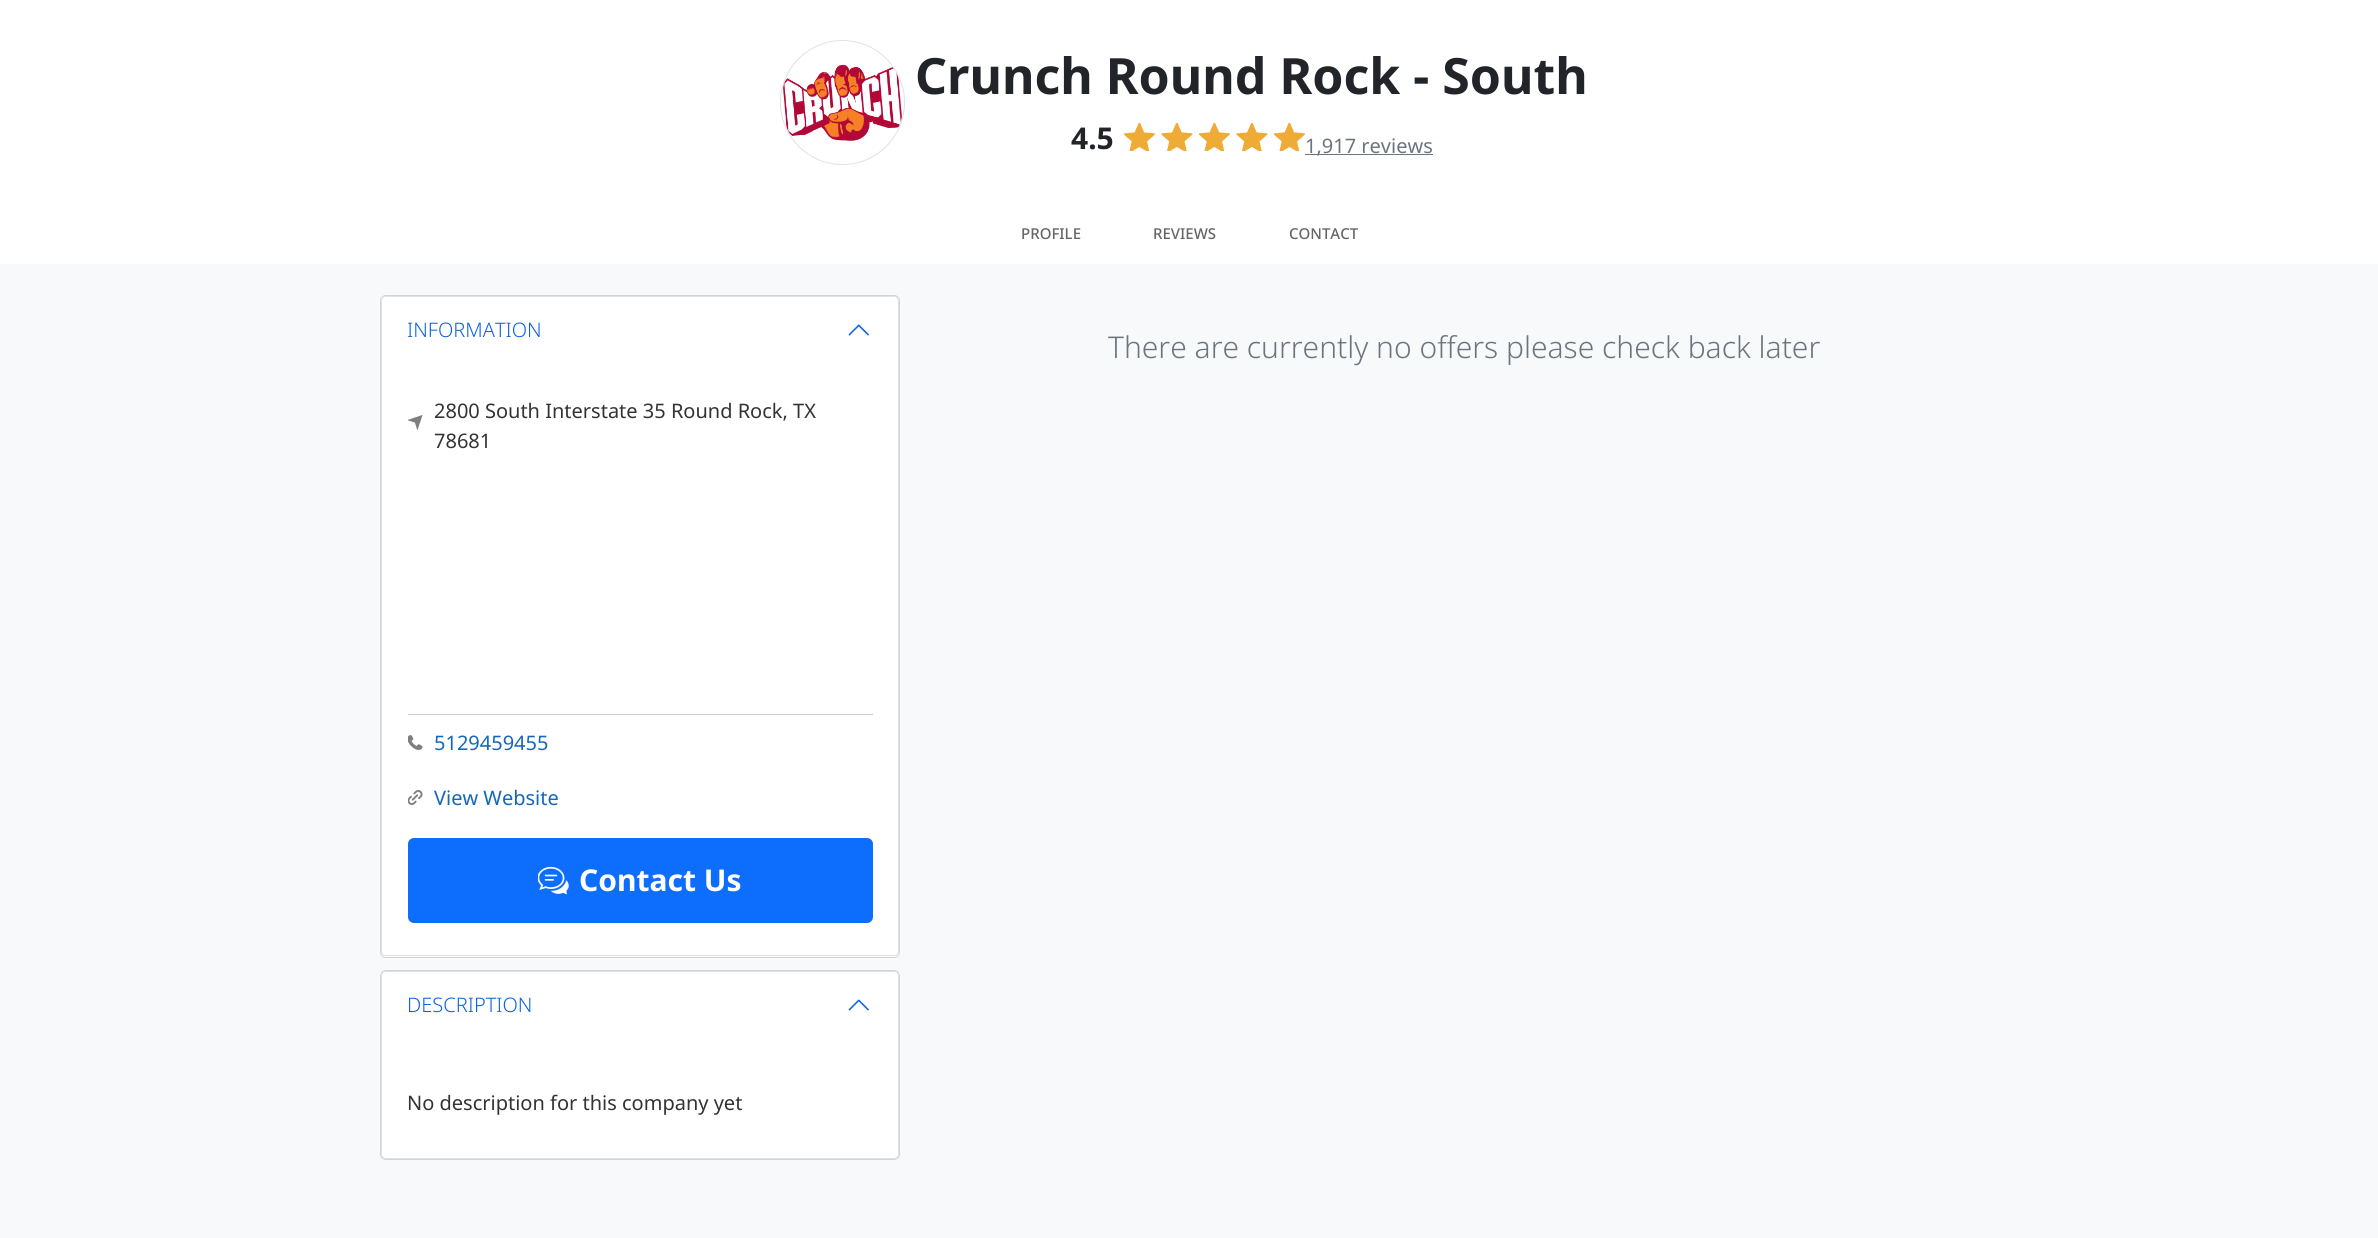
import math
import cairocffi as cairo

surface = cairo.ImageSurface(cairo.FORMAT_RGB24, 2378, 1238)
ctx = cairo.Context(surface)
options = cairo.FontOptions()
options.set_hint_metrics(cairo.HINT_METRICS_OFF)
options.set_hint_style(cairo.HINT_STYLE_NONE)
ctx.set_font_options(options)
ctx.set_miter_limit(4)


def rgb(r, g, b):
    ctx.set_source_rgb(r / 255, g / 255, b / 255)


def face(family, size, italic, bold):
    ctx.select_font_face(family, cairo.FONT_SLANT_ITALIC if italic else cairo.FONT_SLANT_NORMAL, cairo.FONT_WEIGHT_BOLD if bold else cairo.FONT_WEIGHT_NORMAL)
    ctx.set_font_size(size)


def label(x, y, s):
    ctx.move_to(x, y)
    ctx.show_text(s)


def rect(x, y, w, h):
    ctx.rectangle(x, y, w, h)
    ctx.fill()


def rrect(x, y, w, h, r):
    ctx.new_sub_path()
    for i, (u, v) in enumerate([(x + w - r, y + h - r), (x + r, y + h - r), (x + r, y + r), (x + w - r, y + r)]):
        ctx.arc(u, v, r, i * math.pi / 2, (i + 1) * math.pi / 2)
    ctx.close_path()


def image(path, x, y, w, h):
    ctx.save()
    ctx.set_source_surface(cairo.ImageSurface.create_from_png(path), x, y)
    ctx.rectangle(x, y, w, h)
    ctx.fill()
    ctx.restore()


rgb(255, 255, 255)
ctx.paint()
ctx.arc(842.5, 102.5, 62, 0, 2 * math.pi)
rgb(222, 226, 230)
ctx.set_line_width(1)
ctx.stroke()
image('image0.png', 783, 64, 119, 77)
face('Noto Sans', 50, 0, 1)
rgb(33, 37, 41)
label(915, 94, 'Crunch Round Rock - South')
face('Noto Sans', 30, 0, 1)
label(1071, 149, '4.5')
image('image1.png', 1124, 123, 31, 28)
image('image2.png', 1161, 123, 32, 28)
image('image1.png', 1199, 123, 31, 28)
image('image2.png', 1236, 123, 32, 28)
image('image1.png', 1274, 123, 31, 28)
rgb(108, 117, 125)
rect(1305, 154, 128, 1)
face('Noto Sans', 20, 0, 0)
label(1305, 153, '1,917 reviews')
face('Noto Sans Medium', 15, 0, 0)
rgb(102, 102, 102)
label(1021, 239, 'PROFILE')
label(1153, 239, 'REVIEWS')
label(1289, 239, 'CONTACT')
rgb(248, 249, 250)
rect(0, 264, 2378, 974)
rgb(255, 255, 255)
rrect(380.5, 295.5, 519, 662, 5.5)
ctx.fill_preserve()
rgb(211, 211, 211)
ctx.stroke()
rgb(255, 255, 255)
rrect(381, 296, 518, 660, 5)
ctx.fill()
rrect(381.5, 296.5, 517, 659, 4.5)
ctx.set_source_rgba(0, 0, 0, 0.12)
ctx.stroke()
face('Noto Sans Light', 20, 0, 0)
rgb(12, 99, 228)
label(407, 337, 'INFORMATION')
image('image3.png', 848, 324, 21, 12)
image('image4.png', 408, 415, 15, 15)
face('Noto Sans', 20, 0, 0)
rgb(51, 51, 51)
label(434, 418, '2800 South Interstate 35 Round Rock, TX')
label(434, 448, '78681')
rgb(204, 204, 204)
rect(408, 714, 465, 1)
image('image5.png', 408, 735, 15, 15)
rgb(21, 103, 185)
label(434, 750, '5129459455')
image('image6.png', 408, 790, 15, 15)
label(434, 805, 'View Website')
rgb(13, 110, 253)
rrect(408, 838, 465, 85, 6)
ctx.fill()
image('image7.png', 538, 866, 31, 29)
face('Noto Sans', 30, 0, 1)
rgb(255, 255, 255)
label(579, 891, 'Contact Us')
rrect(380.5, 970.5, 519, 189, 5.5)
rgb(211, 211, 211)
ctx.stroke()
rgb(255, 255, 255)
rrect(381, 971, 518, 188, 5)
ctx.fill()
rrect(381.5, 971.5, 517, 187, 4.5)
ctx.set_source_rgba(0, 0, 0, 0.12)
ctx.stroke()
face('Noto Sans Light', 20, 0, 0)
rgb(12, 99, 228)
label(407, 1012, 'DESCRIPTION')
image('image3.png', 848, 999, 21, 12)
face('Noto Sans', 20, 0, 0)
rgb(51, 51, 51)
label(407, 1110, 'No description for this company yet')
face('Noto Sans Light', 30, 0, 0)
rgb(108, 117, 125)
label(1108, 358, 'There are currently no offers please check back later')
surface.write_to_png('render.png')
